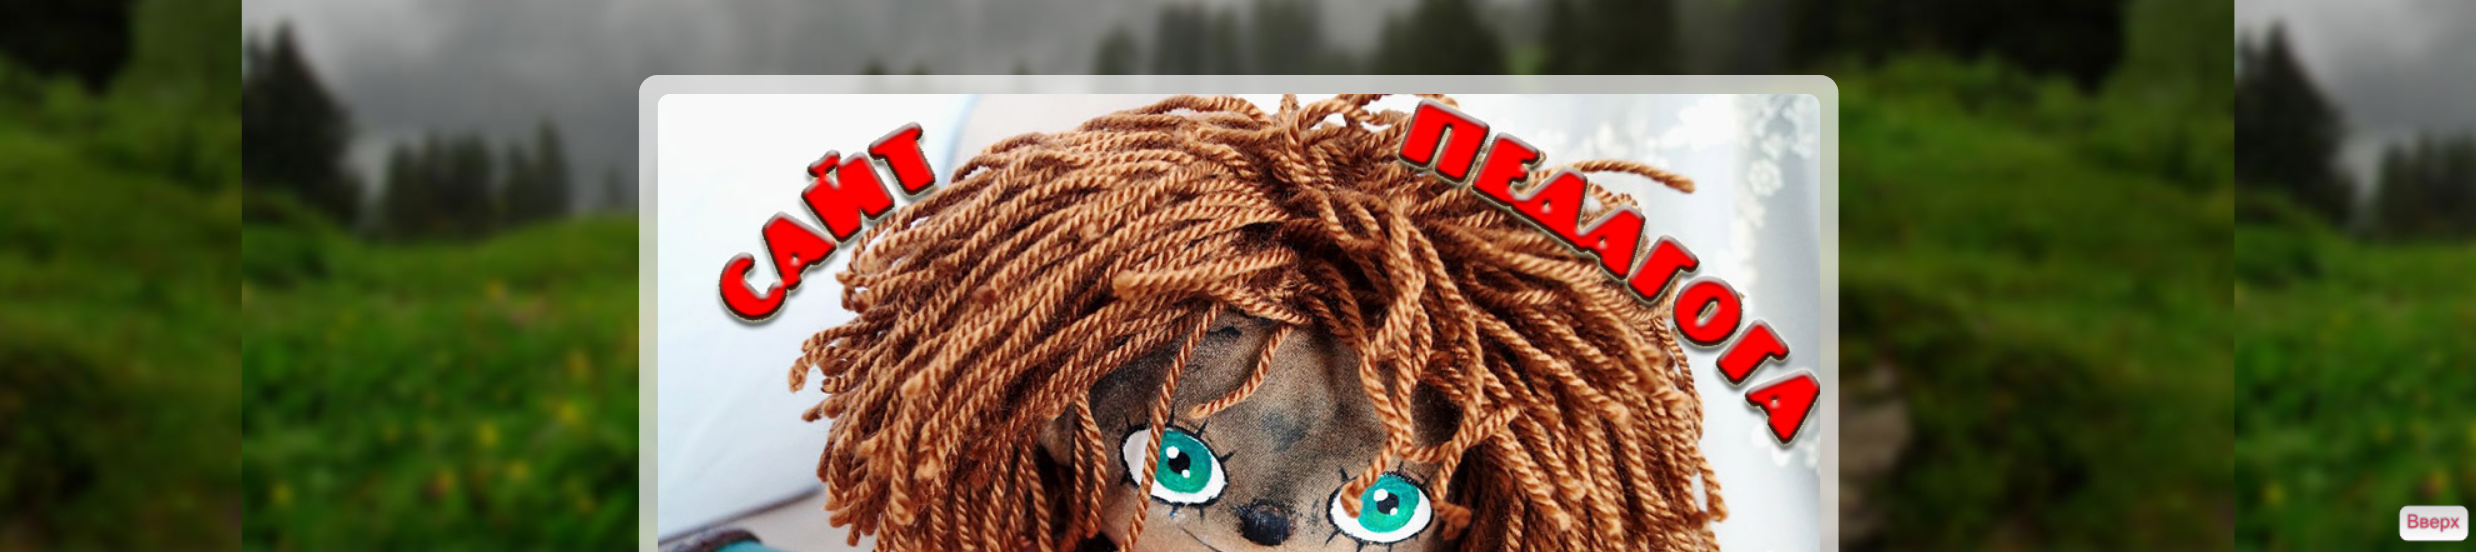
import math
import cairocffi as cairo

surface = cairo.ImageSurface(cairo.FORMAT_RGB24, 2476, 552)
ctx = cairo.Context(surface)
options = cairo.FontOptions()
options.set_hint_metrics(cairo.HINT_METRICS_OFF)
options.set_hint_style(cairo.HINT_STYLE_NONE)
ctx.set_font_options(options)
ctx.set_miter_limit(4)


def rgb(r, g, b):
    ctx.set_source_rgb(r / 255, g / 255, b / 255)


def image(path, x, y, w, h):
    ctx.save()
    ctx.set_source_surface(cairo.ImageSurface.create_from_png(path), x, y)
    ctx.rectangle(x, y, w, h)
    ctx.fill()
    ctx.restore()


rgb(255, 255, 255)
ctx.paint()
image('image0.png', 0, 0, 2476, 552)
image('image1.png', 638, 75, 1201, 477)
image('image2.png', 658, 94, 1162, 12)
image('image3.png', 657, 94, 1163, 458)
image('image4.png', 2398, 504, 71, 38)
surface.write_to_png('render.png')
